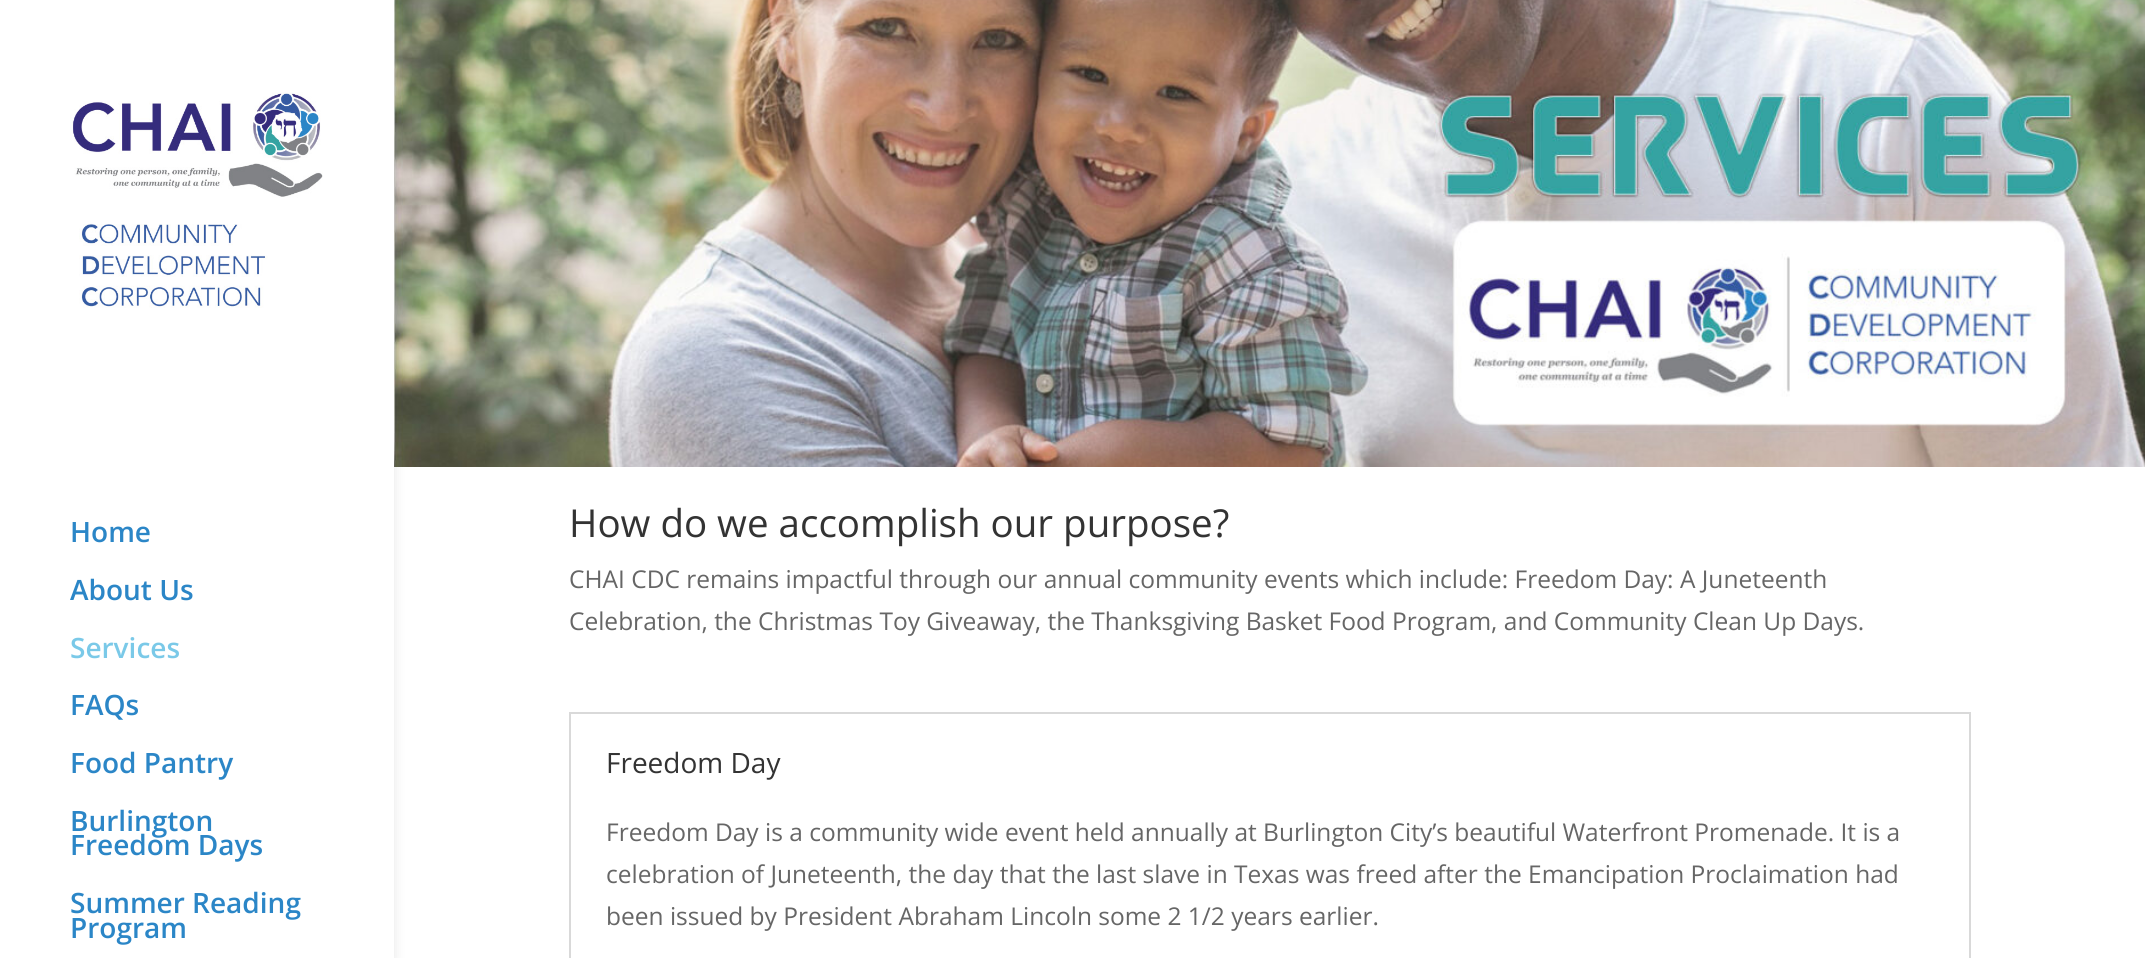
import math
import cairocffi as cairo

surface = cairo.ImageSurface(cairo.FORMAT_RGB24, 2145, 958)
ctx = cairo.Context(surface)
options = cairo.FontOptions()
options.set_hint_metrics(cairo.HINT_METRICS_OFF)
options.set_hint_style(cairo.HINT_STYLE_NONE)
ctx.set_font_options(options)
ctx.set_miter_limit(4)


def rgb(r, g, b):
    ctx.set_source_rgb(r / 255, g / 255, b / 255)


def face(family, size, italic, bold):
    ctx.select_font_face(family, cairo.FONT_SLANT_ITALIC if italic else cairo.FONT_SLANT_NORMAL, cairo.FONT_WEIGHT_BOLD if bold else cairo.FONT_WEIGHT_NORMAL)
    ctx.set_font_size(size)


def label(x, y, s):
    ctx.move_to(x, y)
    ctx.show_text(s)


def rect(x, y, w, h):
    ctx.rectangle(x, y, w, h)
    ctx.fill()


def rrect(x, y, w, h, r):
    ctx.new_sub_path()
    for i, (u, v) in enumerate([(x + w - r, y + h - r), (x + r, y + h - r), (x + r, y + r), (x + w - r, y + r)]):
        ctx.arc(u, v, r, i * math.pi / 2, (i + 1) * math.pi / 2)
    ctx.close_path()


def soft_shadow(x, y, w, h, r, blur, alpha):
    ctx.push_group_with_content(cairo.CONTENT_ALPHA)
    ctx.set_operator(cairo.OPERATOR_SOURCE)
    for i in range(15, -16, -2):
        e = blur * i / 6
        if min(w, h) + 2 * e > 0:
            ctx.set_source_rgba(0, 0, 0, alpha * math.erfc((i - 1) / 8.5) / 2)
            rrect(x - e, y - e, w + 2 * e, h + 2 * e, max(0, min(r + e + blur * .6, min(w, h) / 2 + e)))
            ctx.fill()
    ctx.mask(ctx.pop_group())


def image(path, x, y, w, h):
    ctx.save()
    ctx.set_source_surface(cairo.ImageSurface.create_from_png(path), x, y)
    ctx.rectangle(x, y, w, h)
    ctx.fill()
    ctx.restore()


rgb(255, 255, 255)
ctx.paint()
image('image1.png', 394, 0, 1751, 467)
rgb(0, 0, 0)
soft_shadow(0, 0, 394, 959, 0, 6, 0.1)
rgb(255, 255, 255)
rect(0, 0, 394, 958)
image('image0.png', 70, 92, 253, 216)
face('Open Sans SemiBold', 28, 0, 0)
rgb(43, 134, 199)
label(70, 542, 'Home')
label(70, 600, 'About Us')
rgb(122, 201, 232)
label(70, 658, 'Services')
rgb(43, 134, 199)
label(70, 715, 'FAQs')
label(70, 773, 'Food Pantry')
label(70, 831, 'Burlington')
label(70, 855, 'Freedom Days')
label(70, 913, 'Summer Reading')
label(70, 938, 'Program')
face('Open Sans', 38.5, 0, 0)
rgb(51, 51, 51)
label(569, 537, 'How do we accomplish our purpose?')
face('Open Sans', 24.5, 0, 0)
rgb(102, 102, 102)
label(569, 588, 'CHAI CDC remains impactful through our annual community events which include: Freedom Day: A Juneteenth')
label(569, 630, 'Celebration, the Christmas Toy Giveaway, the Thanksgiving Basket Food Program, and Community Clean Up Days.')
ctx.rectangle(570, 713, 1400, 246)
rgb(217, 217, 217)
ctx.stroke()
face('Open Sans', 28, 0, 0)
rgb(51, 51, 51)
label(606, 773, 'Freedom Day')
face('Open Sans', 24.5, 0, 0)
rgb(102, 102, 102)
label(606, 841, 'Freedom Day is a community wide event held annually at Burlington City’s beautiful Waterfront Promenade. It is a')
label(606, 883, 'celebration of Juneteenth, the day that the last slave in Texas was freed after the Emancipation Proclaimation had')
label(606, 925, 'been issued by President Abraham Lincoln some 2 1/2 years earlier.')
surface.write_to_png('render.png')
